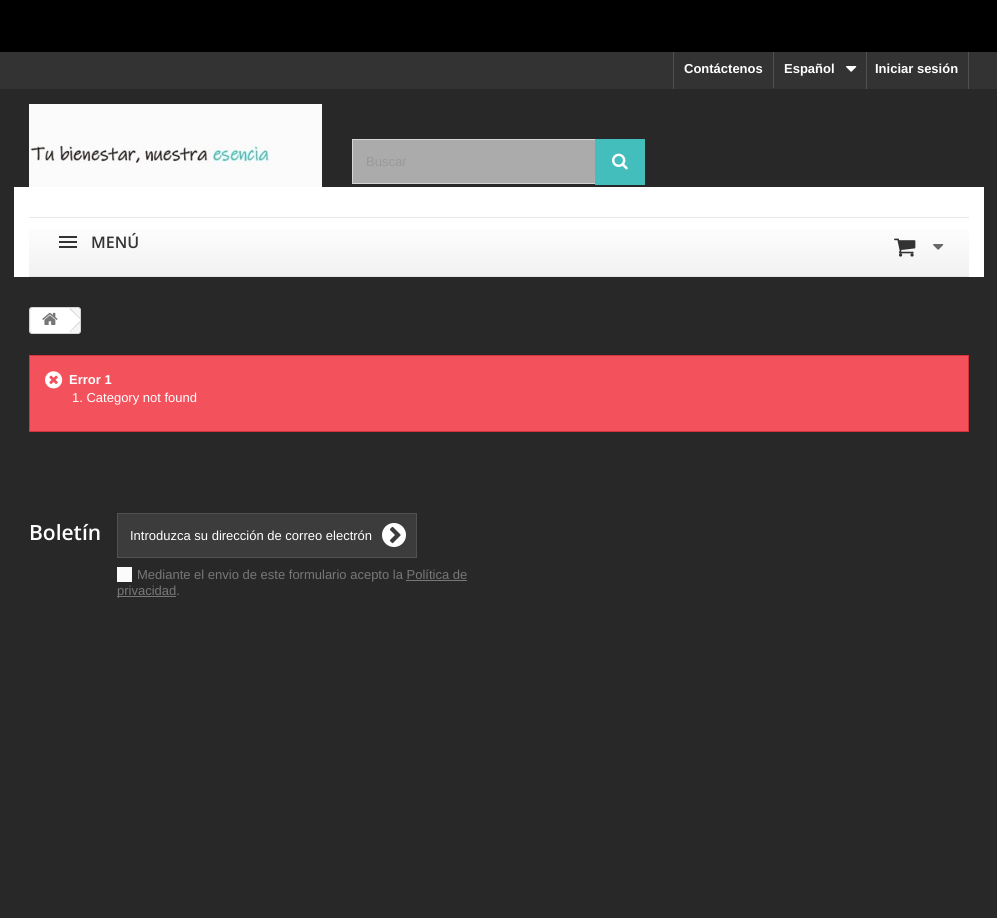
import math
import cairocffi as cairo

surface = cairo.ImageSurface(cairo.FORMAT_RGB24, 997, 918)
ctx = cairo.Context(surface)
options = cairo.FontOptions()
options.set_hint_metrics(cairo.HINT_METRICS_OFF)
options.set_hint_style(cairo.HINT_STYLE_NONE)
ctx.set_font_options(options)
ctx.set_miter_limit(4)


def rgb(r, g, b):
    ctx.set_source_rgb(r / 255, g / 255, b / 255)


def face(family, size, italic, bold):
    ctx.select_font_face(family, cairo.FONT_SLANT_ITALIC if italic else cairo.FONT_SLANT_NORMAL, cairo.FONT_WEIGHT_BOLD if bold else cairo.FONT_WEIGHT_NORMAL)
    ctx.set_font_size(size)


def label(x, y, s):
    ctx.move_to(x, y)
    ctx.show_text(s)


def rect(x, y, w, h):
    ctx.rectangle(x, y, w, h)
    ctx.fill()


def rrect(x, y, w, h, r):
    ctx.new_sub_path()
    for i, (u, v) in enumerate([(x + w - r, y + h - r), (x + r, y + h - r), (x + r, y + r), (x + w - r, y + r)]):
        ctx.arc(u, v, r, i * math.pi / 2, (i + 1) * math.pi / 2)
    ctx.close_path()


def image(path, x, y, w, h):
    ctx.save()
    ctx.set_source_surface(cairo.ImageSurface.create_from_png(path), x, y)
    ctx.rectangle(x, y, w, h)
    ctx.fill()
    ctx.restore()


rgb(40, 40, 40)
ctx.paint()
rgb(0, 0, 0)
rect(0, 0, 997, 52)
rgb(51, 51, 51)
rect(0, 52, 997, 37)
rgb(81, 81, 81)
rect(673, 52, 1, 37)
face('Liberation Sans', 13, 0, 1)
rgb(255, 255, 255)
label(684, 73, 'Contáctenos')
rgb(81, 81, 81)
rect(773, 52, 1, 36)
rgb(255, 255, 255)
label(784, 73, 'Español')
image('image0.png', 846, 66, 11, 6)
rgb(81, 81, 81)
rect(968, 52, 1, 37)
rect(866, 52, 1, 37)
rgb(255, 255, 255)
label(875, 73, 'Iniciar sesión')
image('image1.png', 29, 104, 293, 83)
rgb(171, 171, 171)
rect(353, 140, 242, 43)
ctx.rectangle(352.5, 139.5, 292, 44)
rgb(214, 212, 212)
ctx.set_line_width(1)
ctx.stroke()
face('Liberation Sans', 13, 0, 0)
rgb(153, 153, 153)
label(366, 166, 'Buscar')
rgb(67, 190, 189)
rect(595, 139, 50, 46)
image('image2.png', 612, 153, 16, 17)
rgb(255, 255, 255)
rect(14, 187, 970, 90)
gradient = cairo.LinearGradient(499, 218, 499, 276)
gradient.add_color_stop_rgba(0, 1, 1, 1, 1)
gradient.add_color_stop_rgba(1, 0.949, 0.949, 0.949, 1)
ctx.set_source(gradient)
rect(29, 229, 940, 47)
rgb(231, 231, 231)
rect(29, 217, 940, 1)
rect(29, 276, 940, 1)
rgb(51, 51, 51)
rect(59, 236, 18, 2)
rect(59, 241, 18, 2)
rect(59, 246, 18, 2)
face('Open Sans SemiBold', 16, 0, 0)
label(91, 248, 'MENÚ')
image('image3.png', 894, 238, 22, 19)
image('image4.png', 933, 244, 11, 6)
rgb(246, 246, 246)
rrect(29.5, 307.5, 51, 26, 2.5)
ctx.fill_preserve()
rgb(214, 212, 212)
ctx.stroke()
rgb(255, 255, 255)
ctx.new_path()
ctx.move_to(34, 308)
ctx.line_to(69, 308)
ctx.line_to(69, 333)
ctx.line_to(34, 333)
ctx.curve_to(32.5, 333, 31, 331.5, 31, 330)
ctx.line_to(31, 311)
ctx.curve_to(31, 309.5, 32.5, 308, 34, 308)
ctx.close_path()
ctx.fill()
ctx.new_path()
ctx.move_to(71, 309)
ctx.line_to(80, 318)
ctx.line_to(80, 322.5)
ctx.line_to(71, 331.5)
ctx.curve_to(70, 332.5, 69, 332.5, 68, 331.5)
ctx.line_to(58, 321.5)
ctx.curve_to(57.5, 321, 57.5, 319.5, 58, 319)
ctx.line_to(68, 309)
ctx.curve_to(69, 308, 70, 308, 71, 309)
ctx.close_path()
ctx.fill()
image('image5.png', 42, 312, 16, 13)
rgb(214, 212, 212)
ctx.new_path()
ctx.move_to(70, 308)
ctx.line_to(80, 318)
ctx.line_to(80, 319)
ctx.line_to(69.5, 309)
ctx.close_path()
ctx.move_to(80, 321)
ctx.line_to(80, 322.5)
ctx.line_to(70, 332)
ctx.line_to(69.5, 331.5)
ctx.close_path()
ctx.fill()
rgb(243, 81, 92)
ctx.rectangle(29.5, 355.5, 939, 76)
ctx.fill_preserve()
rgb(212, 50, 61)
ctx.stroke()
image('image6.png', 45, 371, 18, 18)
face('Liberation Sans', 13, 0, 1)
rgb(255, 255, 255)
label(69, 384, 'Error 1')
face('Liberation Sans', 13, 0, 0)
label(72, 402, '1. Category not found')
face('Open Sans SemiBold', 21, 0, 0)
label(29, 540, 'Boletín')
rgb(60, 60, 60)
ctx.rectangle(117.5, 513.5, 299, 44)
ctx.fill_preserve()
rgb(81, 81, 81)
ctx.stroke()
face('Liberation Sans', 13, 0, 0)
rgb(255, 255, 255)
label(130, 540, 'Introduzca su dirección de correo electrón')
image('image7.png', 382, 523, 24, 24)
rgb(251, 251, 251)
rect(117, 567, 15, 15)
rgb(119, 119, 119)
label(137, 579, 'Mediante el envio de este formulario acepto la Política de')
rect(406, 580, 61, 1)
rect(117, 596, 59, 1)
label(117, 595, 'privacidad.')
surface.write_to_png('render.png')
